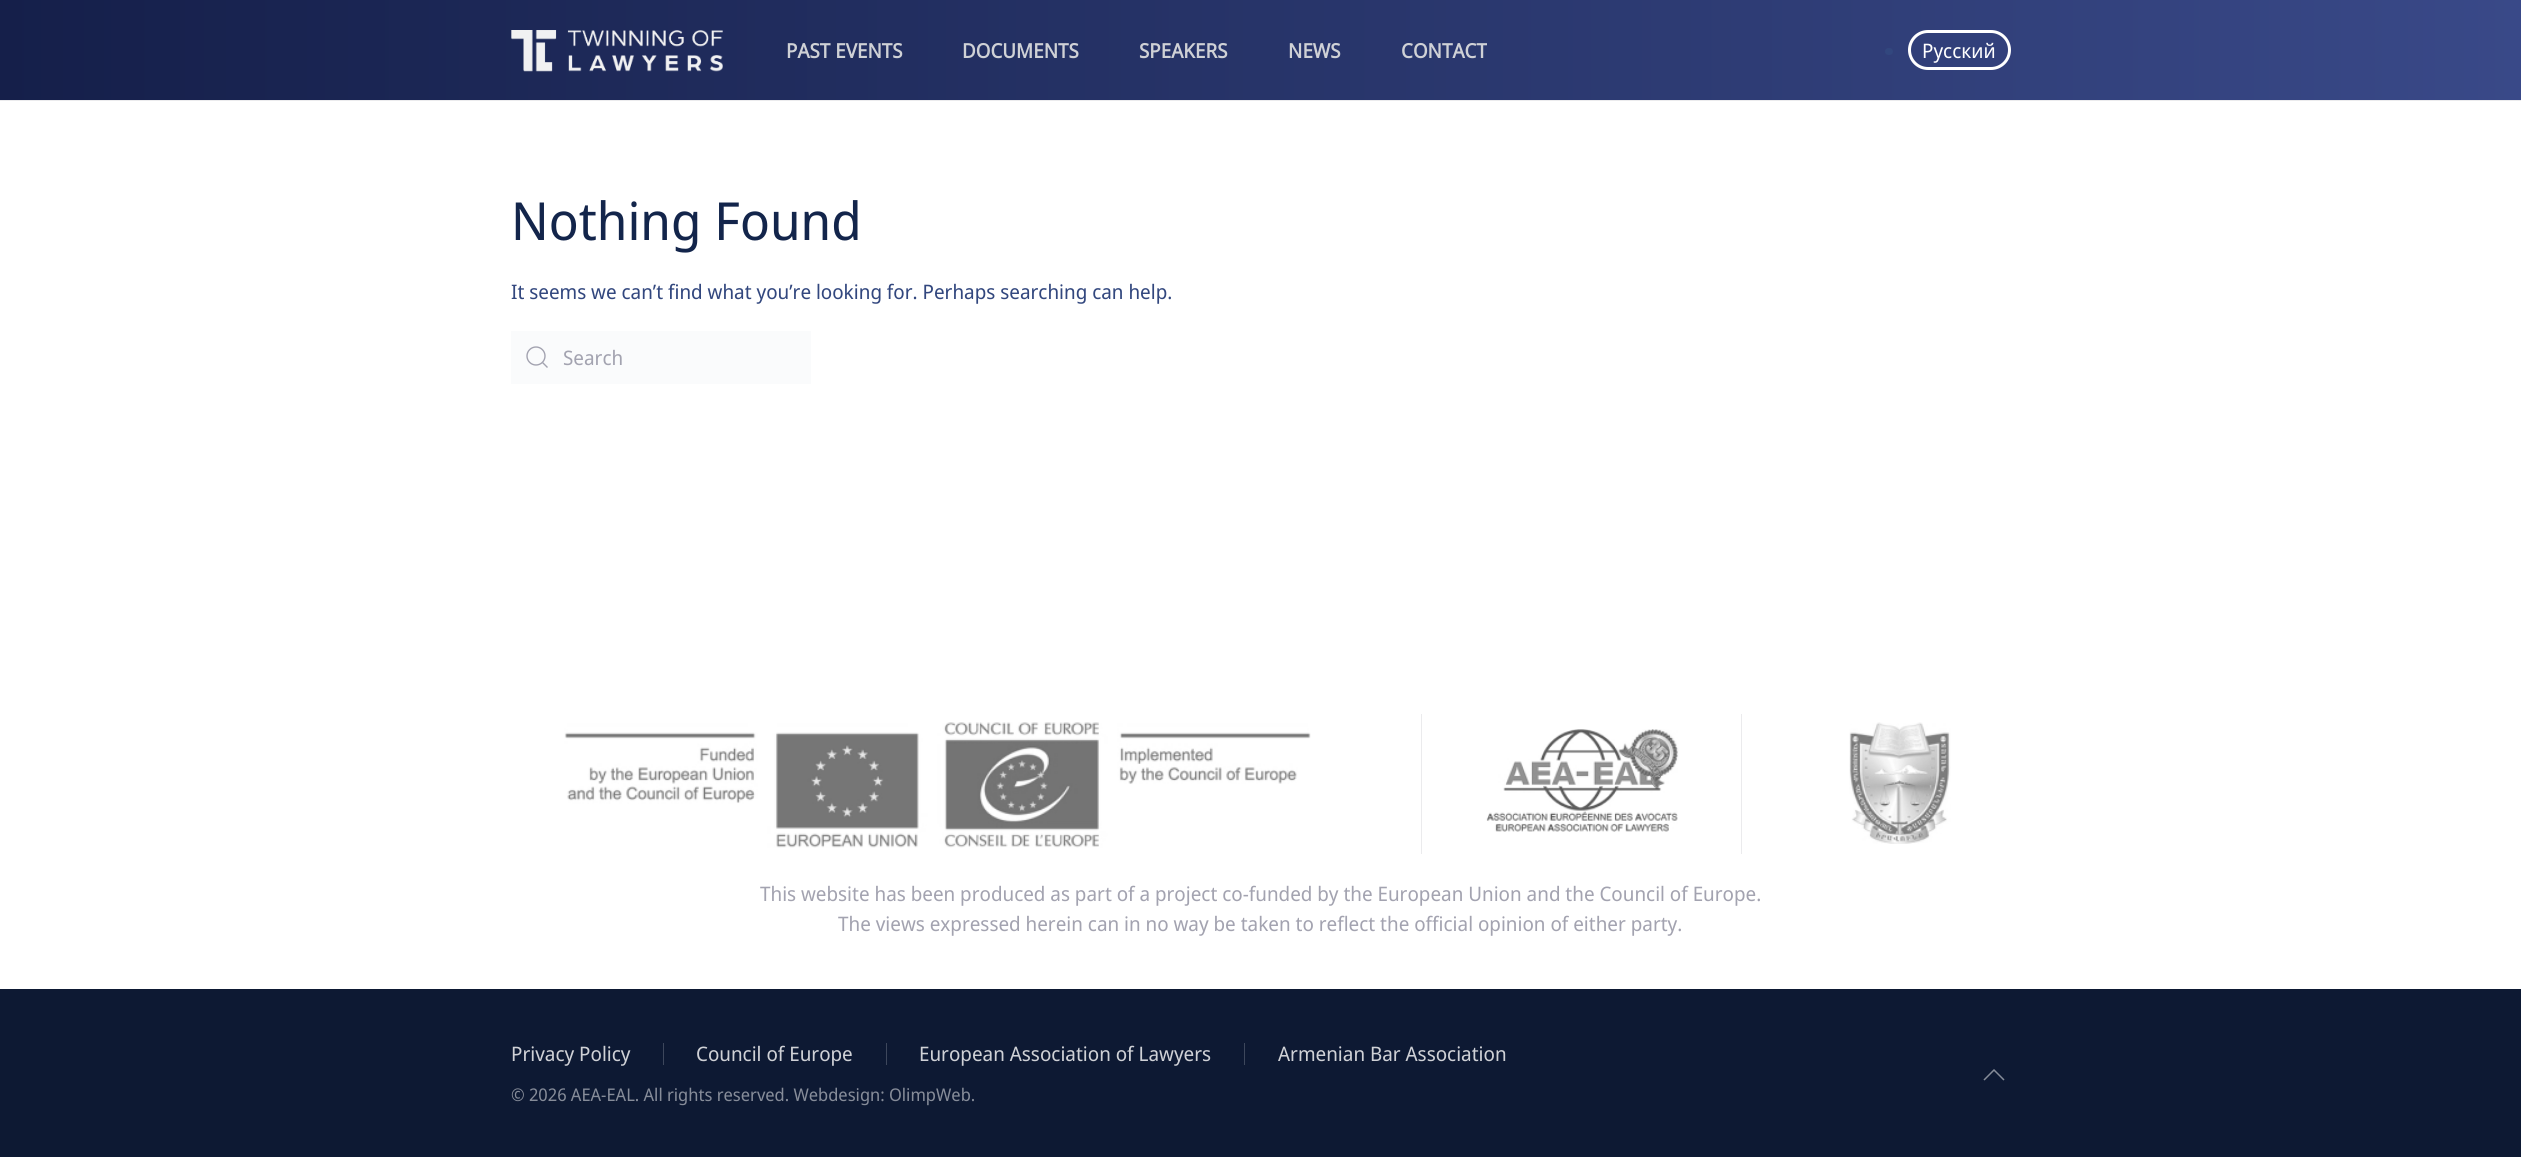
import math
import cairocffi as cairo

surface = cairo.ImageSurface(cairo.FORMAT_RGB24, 2521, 1157)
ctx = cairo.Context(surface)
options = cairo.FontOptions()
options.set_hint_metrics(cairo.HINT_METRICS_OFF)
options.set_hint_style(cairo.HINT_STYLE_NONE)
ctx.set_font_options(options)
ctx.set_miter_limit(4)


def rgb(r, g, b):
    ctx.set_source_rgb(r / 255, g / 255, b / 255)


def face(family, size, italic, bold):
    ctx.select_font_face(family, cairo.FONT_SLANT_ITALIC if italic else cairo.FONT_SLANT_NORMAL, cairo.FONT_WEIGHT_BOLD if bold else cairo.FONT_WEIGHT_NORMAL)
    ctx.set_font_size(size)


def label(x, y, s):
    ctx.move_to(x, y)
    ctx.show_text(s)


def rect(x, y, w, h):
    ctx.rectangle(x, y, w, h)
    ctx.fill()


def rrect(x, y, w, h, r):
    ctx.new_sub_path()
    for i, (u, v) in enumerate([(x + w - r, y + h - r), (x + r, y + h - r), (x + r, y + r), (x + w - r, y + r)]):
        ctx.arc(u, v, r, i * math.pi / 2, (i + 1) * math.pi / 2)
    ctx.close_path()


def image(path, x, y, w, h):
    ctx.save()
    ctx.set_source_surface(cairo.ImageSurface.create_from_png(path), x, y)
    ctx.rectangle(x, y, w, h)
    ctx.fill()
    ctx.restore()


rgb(255, 255, 255)
ctx.paint()
gradient = cairo.LinearGradient(0, 50, 2521, 50)
gradient.add_color_stop_rgba(0, 0.082, 0.122, 0.29, 1)
gradient.add_color_stop_rgba(1, 0.224, 0.286, 0.533, 1)
ctx.set_source(gradient)
rect(0, 0, 2521, 100)
rgb(235, 235, 237)
rect(0, 100, 2521, 1)
image('image0.png', 511, 30, 212, 42)
face('Noto Sans Display', 20, 0, 1)
rgb(207, 209, 214)
label(786, 58, 'PAST EVENTS')
label(962, 58, 'DOCUMENTS')
label(1139, 58, 'SPEAKERS')
label(1288, 58, 'NEWS')
label(1401, 58, 'CONTACT')
rgb(50, 71, 126)
rrect(1885, 48, 8, 7, 3.5)
ctx.fill()
rrect(1909.5, 31.5, 100, 37, 18.5)
rgb(255, 255, 255)
ctx.set_line_width(3)
ctx.stroke()
face('Noto Sans Display', 20, 0, 0)
label(1922, 58, 'Русский')
face('Noto Sans Display', 52.5, 0, 0)
rgb(19, 37, 75)
label(511, 240, 'Nothing Found')
face('Noto Sans Display', 20, 0, 0)
rgb(50, 71, 126)
label(511, 299, 'It seems we can’t find what you’re looking for. Perhaps searching can help.')
rgb(250, 251, 252)
rect(511, 331, 300, 53)
ctx.new_path()
ctx.arc(536, 356, 9, 0, 2 * math.pi)
rgb(163, 163, 176)
ctx.set_line_width(1.4)
ctx.stroke()
ctx.new_path()
ctx.move_to(542.5, 362.5)
ctx.line_to(547.5, 367.5)
ctx.close_path()
ctx.stroke()
label(563, 365, 'Search')
image('image1.png', 564, 722, 747, 126)
rgb(235, 235, 237)
rect(1421, 714, 1, 140)
image('image2.png', 1486, 729, 193, 103)
rect(1741, 714, 1, 140)
image('image3.png', 1849, 722, 102, 122)
rgb(163, 163, 176)
label(760, 901, 'This website has been produced as part of a project co-funded by the European Union and the Council of Europe.')
label(838, 931, 'The views expressed herein can in no way be taken to reflect the official opinion of either party.')
rgb(13, 25, 51)
rect(0, 989, 2521, 168)
rgb(207, 209, 214)
label(511, 1061, 'Privacy Policy')
rgb(61, 71, 92)
rect(663, 1043, 1, 22)
rgb(207, 209, 214)
label(696, 1061, 'Council of Europe')
rgb(61, 71, 92)
rect(886, 1043, 1, 22)
rgb(207, 209, 214)
label(919, 1061, 'European Association of Lawyers')
rgb(61, 71, 92)
rect(1244, 1043, 1, 22)
rgb(207, 209, 214)
label(1278, 1061, 'Armenian Bar Association')
face('Noto Sans Display', 17.5, 0, 0)
rgb(134, 140, 153)
label(511, 1101, '© 2026 AEA-EAL. All rights reserved. Webdesign: OlimpWeb.')
ctx.new_path()
ctx.move_to(1984, 1080)
ctx.line_to(1994, 1070)
ctx.line_to(2004, 1080)
ctx.set_line_width(1.5)
ctx.stroke()
surface.write_to_png('render.png')
